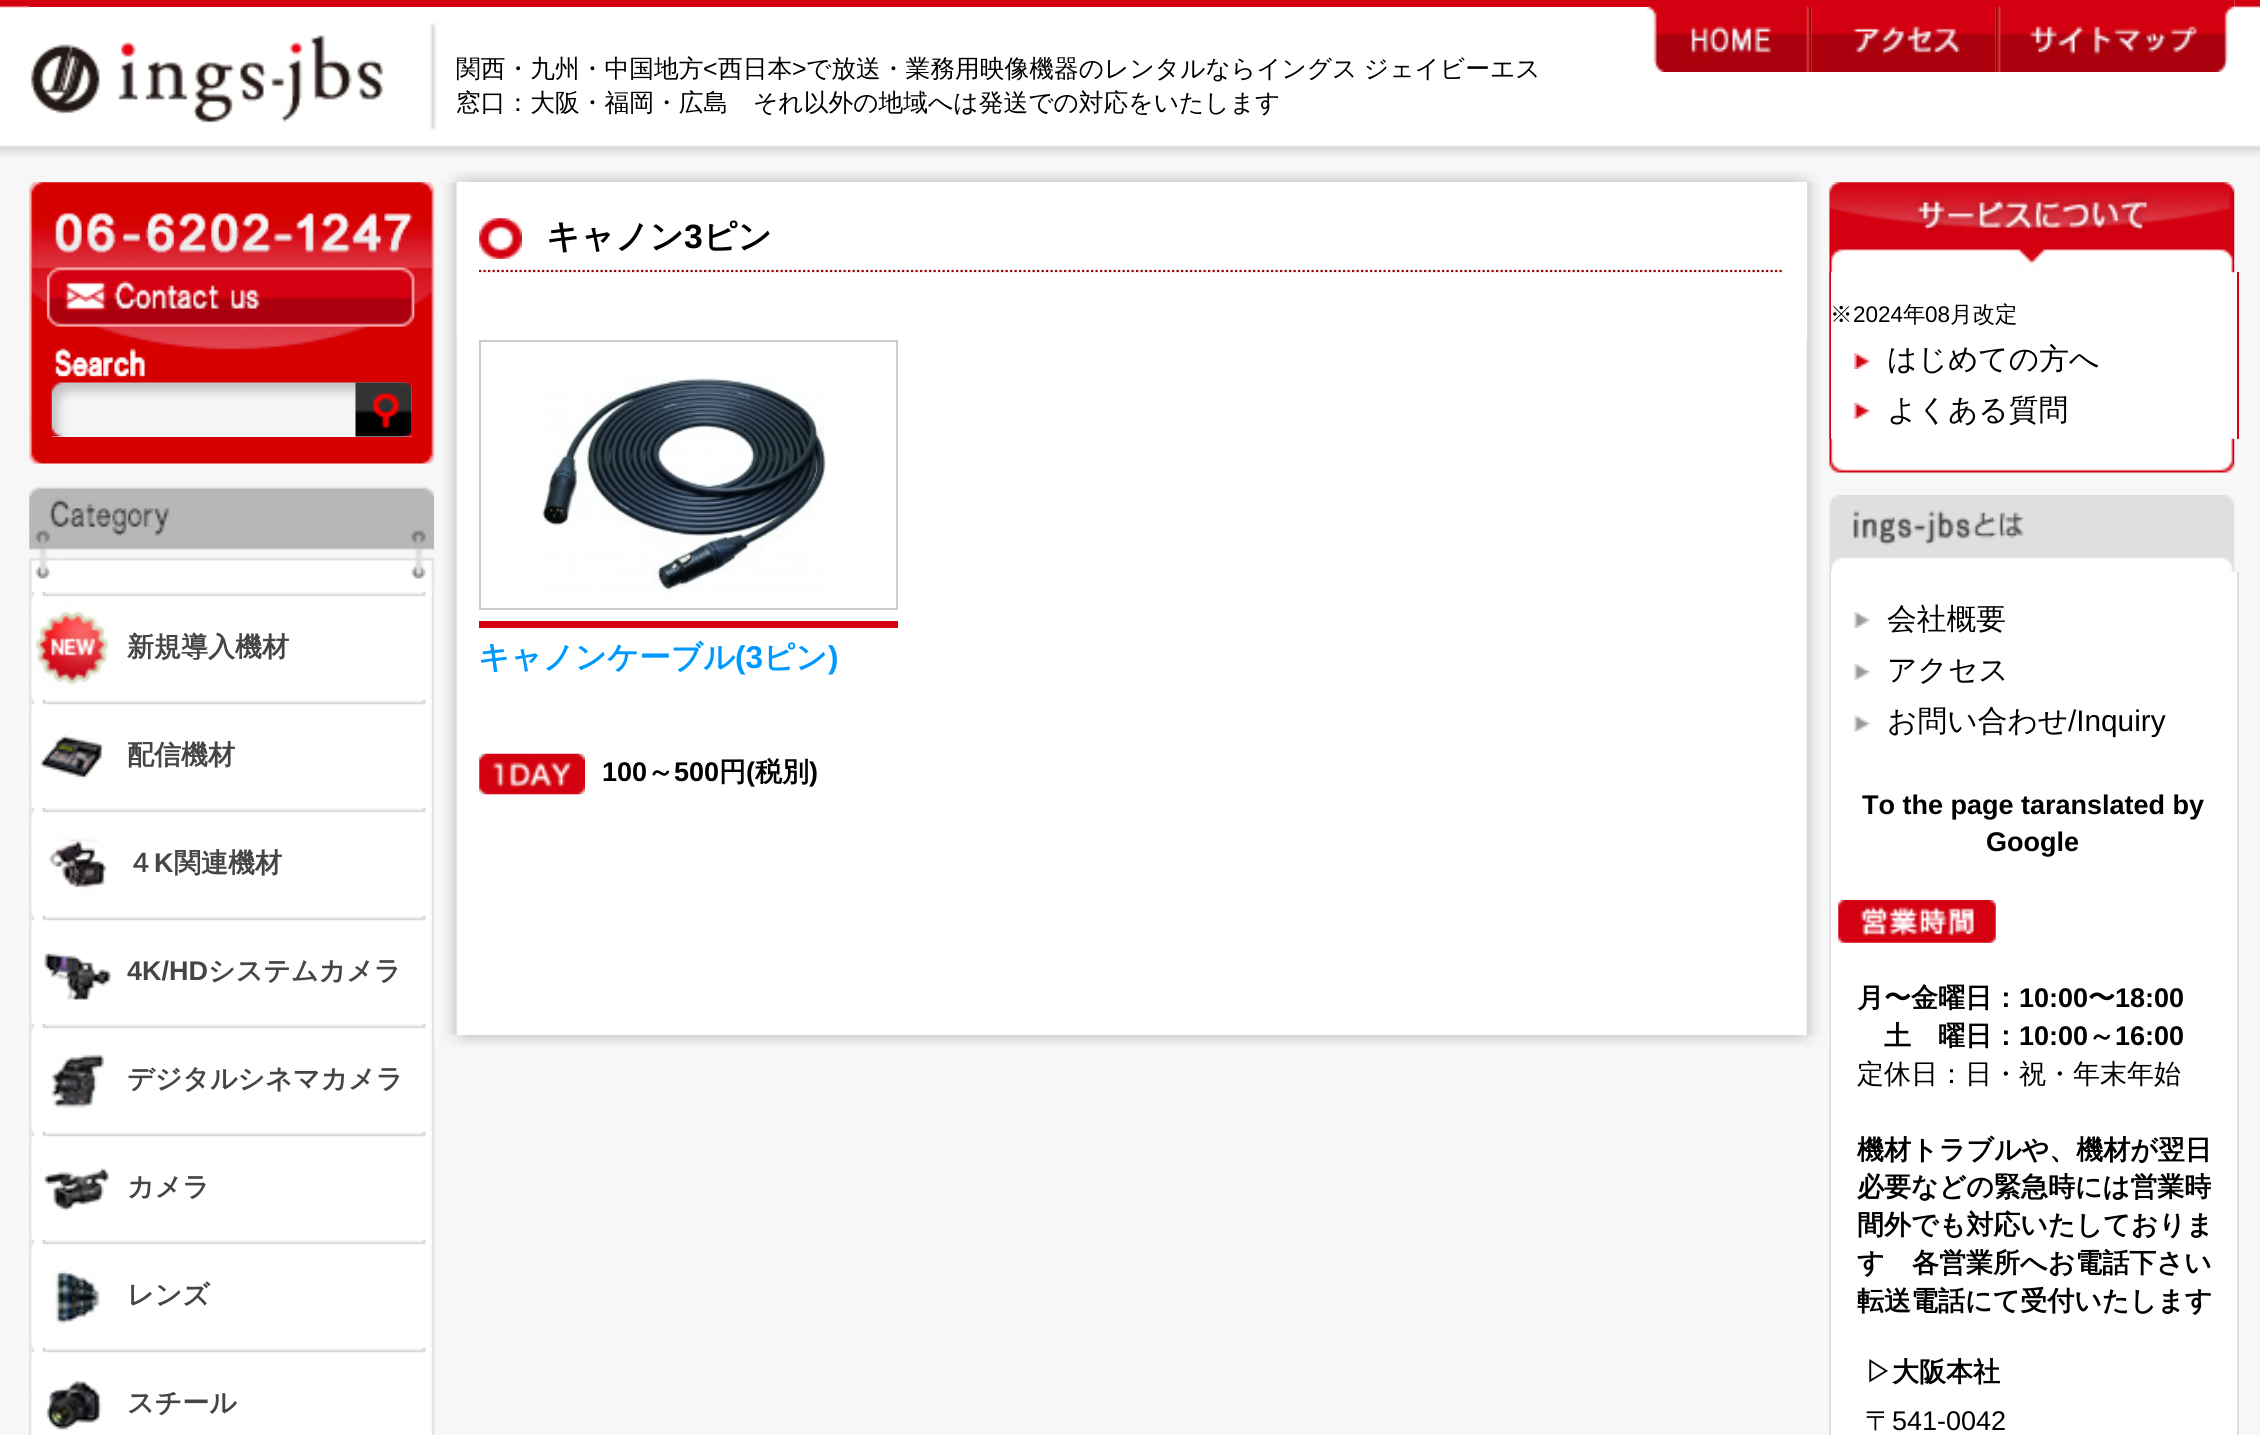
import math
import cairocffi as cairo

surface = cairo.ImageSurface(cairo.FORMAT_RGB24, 2260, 1435)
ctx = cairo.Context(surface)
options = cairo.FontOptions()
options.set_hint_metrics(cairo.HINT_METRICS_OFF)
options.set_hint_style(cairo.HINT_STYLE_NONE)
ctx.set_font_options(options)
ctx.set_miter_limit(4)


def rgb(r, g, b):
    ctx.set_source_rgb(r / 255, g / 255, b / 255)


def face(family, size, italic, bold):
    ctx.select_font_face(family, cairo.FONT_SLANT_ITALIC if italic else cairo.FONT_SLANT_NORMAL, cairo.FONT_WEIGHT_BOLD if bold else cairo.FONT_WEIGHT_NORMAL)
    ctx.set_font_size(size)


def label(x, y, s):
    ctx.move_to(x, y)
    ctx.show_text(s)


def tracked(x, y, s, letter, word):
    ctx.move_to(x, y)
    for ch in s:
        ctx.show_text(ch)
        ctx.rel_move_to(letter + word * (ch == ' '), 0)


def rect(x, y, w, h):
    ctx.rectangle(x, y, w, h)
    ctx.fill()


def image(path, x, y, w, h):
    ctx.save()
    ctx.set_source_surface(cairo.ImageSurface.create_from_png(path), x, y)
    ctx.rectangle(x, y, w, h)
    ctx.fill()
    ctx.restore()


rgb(247, 247, 247)
ctx.paint()
image('image0.png', 0, 0, 2260, 157)
image('image1.png', 29, 0, 2206, 131)
rgb(212, 0, 17)
rect(29, 0, 2205, 7)
image('image2.png', 1647, 6, 165, 66)
image('image3.png', 1811, 7, 185, 65)
image('image4.png', 1995, 6, 240, 66)
face('WenQuanYi Zen Hei Medium', 24.75, 0, 0)
rgb(0, 0, 0)
label(456, 77, '関西・九州・中国地方')
face('Liberation Sans', 24.75, 0, 0)
label(703, 77, '<')
face('WenQuanYi Zen Hei Medium', 24.75, 0, 0)
label(718, 77, '西日本')
face('Liberation Sans', 24.75, 0, 0)
label(792, 77, '>')
face('WenQuanYi Zen Hei Medium', 24.75, 0, 0)
tracked(806, 77, 'で放送・業務用映像機器のレンタルならイングス ジェイビーエス', 0, -1)
label(456, 111, '窓口：大阪・福岡・広島　それ以外の地域へは発送での対応をいたします')
image('image5.png', 29, 182, 406, 282)
image('image6.png', 31, 182, 401, 86)
image('image7.png', 47, 267, 367, 60)
image('image8.png', 55, 348, 90, 28)
rgb(255, 255, 255)
rect(52, 383, 360, 54)
image('image9.png', 51, 382, 361, 55)
image('image10.png', 355, 382, 57, 55)
image('image12.png', 29, 591, 406, 844)
image('image13.png', 31, 591, 401, 6)
image('image11.png', 29, 486, 406, 106)
image('image14.png', 31, 601, 78, 94)
face('WenQuanYi Zen Hei', 27, 0, 1)
rgb(69, 69, 69)
label(127, 656, '新規導入機材')
image('image15.png', 31, 699, 401, 6)
image('image16.png', 31, 709, 73, 94)
label(127, 764, '配信機材')
image('image15.png', 31, 807, 401, 6)
image('image17.png', 31, 817, 76, 94)
label(127, 872, '４')
face('Liberation Sans', 27, 0, 1)
label(154, 872, 'K')
face('WenQuanYi Zen Hei', 27, 0, 1)
label(174, 872, '関連機材')
image('image15.png', 31, 915, 401, 6)
image('image18.png', 31, 925, 80, 94)
face('Liberation Sans', 27, 0, 1)
label(127, 980, '4K/HD')
face('WenQuanYi Zen Hei', 27, 0, 1)
label(208, 980, 'システムカメラ')
image('image15.png', 31, 1023, 401, 6)
image('image19.png', 31, 1033, 74, 94)
label(127, 1088, 'デジタルシネマカメラ')
image('image15.png', 31, 1131, 401, 6)
image('image20.png', 31, 1141, 78, 94)
label(127, 1196, 'カメラ')
image('image15.png', 31, 1239, 401, 6)
image('image21.png', 31, 1249, 69, 94)
label(127, 1304, 'レンズ')
image('image15.png', 31, 1347, 401, 6)
image('image22.png', 31, 1357, 71, 78)
label(127, 1412, 'スチール')
image('image23.png', 448, 171, 1369, 12)
rgb(255, 255, 255)
rect(1831, 272, 406, 167)
rgb(212, 0, 17)
rect(1829, 272, 2, 167)
image('image29.png', 1829, 182, 406, 91)
image('image32.png', 1829, 438, 406, 35)
image('image33.png', 1829, 495, 406, 77)
rgb(223, 223, 223)
rect(1829, 572, 2, 863)
image('image24.png', 434, 182, 1396, 865)
rgb(255, 255, 255)
rect(457, 182, 1350, 158)
image('image25.png', 479, 218, 43, 41)
ctx.new_path()
ctx.move_to(479, 271)
ctx.line_to(1784, 271)
rgb(153, 0, 0)
ctx.set_line_width(2.2)
ctx.set_dash([2.25, 2.25])
ctx.stroke()
face('WenQuanYi Zen Hei', 33.75, 0, 1)
rgb(0, 0, 0)
label(546, 248, 'キャノン')
face('Liberation Sans', 33.75, 0, 1)
label(684, 248, '3')
face('WenQuanYi Zen Hei', 33.75, 0, 1)
label(703, 248, 'ピン')
ctx.rectangle(480, 341, 417, 268)
rgb(204, 204, 204)
ctx.set_line_width(2)
ctx.set_dash([])
ctx.stroke()
image('image26.png', 540, 378, 286, 219)
rgb(212, 0, 17)
rect(479, 621, 419, 7)
face('WenQuanYi Zen Hei', 31.5, 0, 1)
rgb(0, 153, 255)
label(478, 668, 'キャノンケーブル')
face('Liberation Sans', 31.5, 0, 1)
label(735, 668, '(3')
face('WenQuanYi Zen Hei', 31.5, 0, 1)
label(763, 668, 'ピン')
face('Liberation Sans', 31.5, 0, 1)
label(828, 668, ')')
image('image27.png', 479, 753, 106, 42)
face('Liberation Sans', 27, 0, 1)
rgb(0, 0, 0)
label(602, 781, '100')
face('WenQuanYi Zen Hei', 27, 0, 1)
label(647, 781, '～')
face('Liberation Sans', 27, 0, 1)
label(674, 781, '500')
face('WenQuanYi Zen Hei', 27, 0, 1)
label(719, 781, '円')
face('Liberation Sans', 27, 0, 1)
label(746, 781, '(')
face('WenQuanYi Zen Hei', 27, 0, 1)
label(755, 781, '税別')
face('Liberation Sans', 27, 0, 1)
label(809, 781, ')')
image('image28.png', 446, 1035, 1384, 11)
rgb(212, 0, 17)
rect(2237, 272, 2, 167)
face('WenQuanYi Zen Hei Medium', 22.5, 0, 0)
rgb(0, 0, 0)
label(1830, 322, '※')
face('Liberation Sans', 22.5, 0, 0)
label(1853, 322, '2024')
face('WenQuanYi Zen Hei Medium', 22.5, 0, 0)
label(1903, 322, '年')
face('Liberation Sans', 22.5, 0, 0)
label(1925, 322, '08')
face('WenQuanYi Zen Hei Medium', 22.5, 0, 0)
label(1950, 322, '月改定')
image('image30.png', 1854, 353, 16, 16)
face('WenQuanYi Zen Hei Medium', 29.75, 0, 0)
label(1887, 369, 'はじめての方へ')
image('image31.png', 1854, 402, 16, 17)
label(1887, 420, 'よくある質問')
rgb(255, 255, 255)
rect(1831, 572, 406, 863)
rgb(223, 223, 223)
rect(2237, 572, 2, 863)
image('image34.png', 1854, 612, 16, 16)
rgb(0, 0, 0)
label(1887, 629, '会社概要')
image('image35.png', 1854, 663, 16, 17)
label(1887, 680, 'アクセス')
image('image36.png', 1854, 715, 16, 17)
label(1887, 731, 'お問い合わせ')
face('Liberation Sans', 29.75, 0, 0)
label(2068, 731, '/Inquiry')
face('Liberation Sans', 27, 0, 1)
label(1862, 814, 'To the page taranslated by')
label(1986, 851, 'Google')
image('image37.png', 1838, 900, 158, 43)
face('WenQuanYi Zen Hei', 27, 0, 1)
label(1857, 1007, '月〜金曜日：')
face('Liberation Sans', 27, 0, 1)
label(2019, 1007, '10:00')
face('WenQuanYi Zen Hei', 27, 0, 1)
label(2088, 1007, '〜')
face('Liberation Sans', 27, 0, 1)
label(2115, 1007, '18:00')
face('WenQuanYi Zen Hei', 27, 0, 1)
label(1884, 1045, '土　曜日：')
face('Liberation Sans', 27, 0, 1)
label(2019, 1045, '10:00')
face('WenQuanYi Zen Hei', 27, 0, 1)
label(2088, 1045, '～')
face('Liberation Sans', 27, 0, 1)
label(2115, 1045, '16:00')
face('WenQuanYi Zen Hei Medium', 27, 0, 0)
label(1857, 1083, '定休日：日・祝・年末年始')
face('WenQuanYi Zen Hei', 27, 0, 1)
label(1857, 1159, '機材トラブルや、機材が翌日')
label(1857, 1196, '必要などの緊急時には営業時')
label(1857, 1234, '間外でも対応いたしておりま')
label(1857, 1272, 'す')
label(1912, 1272, '各営業所へお電話下さい')
label(1857, 1310, '転送電話にて受付いたします')
label(1865, 1381, '▷大阪本社')
face('WenQuanYi Zen Hei Medium', 27, 0, 0)
label(1865, 1430, '〒')
face('Liberation Sans', 27, 0, 0)
label(1892, 1430, '541-0042')
surface.write_to_png('render.png')
